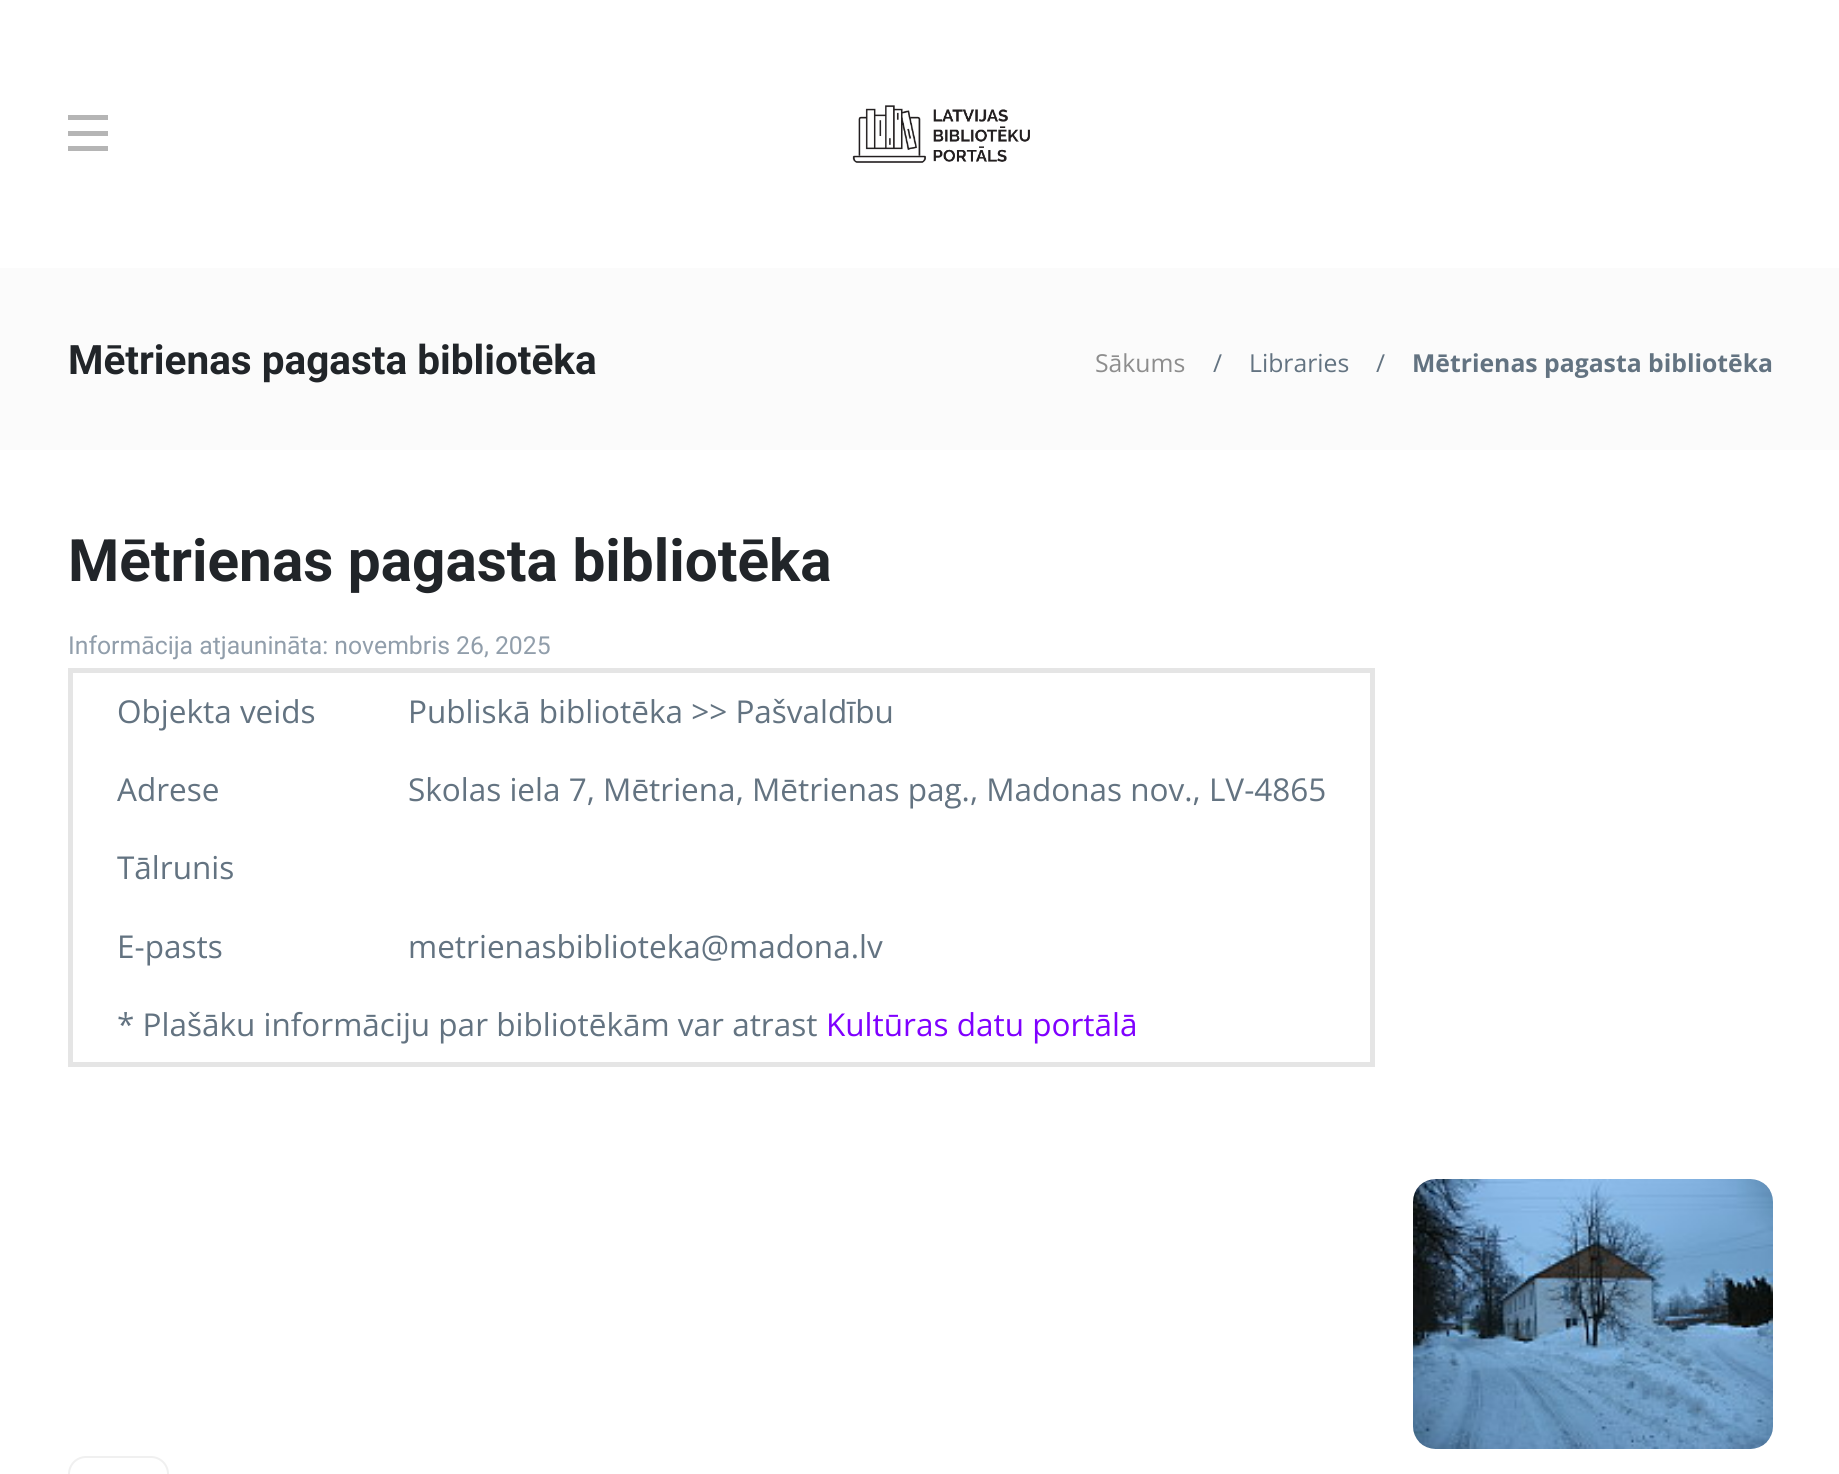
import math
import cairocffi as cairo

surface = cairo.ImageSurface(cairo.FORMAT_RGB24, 1839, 1474)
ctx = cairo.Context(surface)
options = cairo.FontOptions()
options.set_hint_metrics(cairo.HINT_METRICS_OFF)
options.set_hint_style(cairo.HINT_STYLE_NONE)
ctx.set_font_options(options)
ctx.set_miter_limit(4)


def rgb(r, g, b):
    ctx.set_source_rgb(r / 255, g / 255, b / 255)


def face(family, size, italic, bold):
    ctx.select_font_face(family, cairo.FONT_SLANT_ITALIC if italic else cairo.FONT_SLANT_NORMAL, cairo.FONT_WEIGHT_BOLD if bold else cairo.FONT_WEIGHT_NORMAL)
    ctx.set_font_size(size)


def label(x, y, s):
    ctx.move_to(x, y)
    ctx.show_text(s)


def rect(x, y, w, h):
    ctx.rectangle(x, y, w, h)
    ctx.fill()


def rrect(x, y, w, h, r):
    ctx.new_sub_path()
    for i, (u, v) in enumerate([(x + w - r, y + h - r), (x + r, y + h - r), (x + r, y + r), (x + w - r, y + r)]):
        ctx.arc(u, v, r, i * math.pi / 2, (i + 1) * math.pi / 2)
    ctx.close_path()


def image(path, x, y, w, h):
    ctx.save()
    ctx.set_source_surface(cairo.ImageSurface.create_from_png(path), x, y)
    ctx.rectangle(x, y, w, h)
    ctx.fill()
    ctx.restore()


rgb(255, 255, 255)
ctx.paint()
rgb(181, 181, 181)
rect(68, 115, 40, 5)
rect(68, 131, 40, 5)
rect(68, 146, 40, 5)
image('image0.png', 852, 105, 178, 58)
rgb(251, 251, 251)
rect(0, 268, 1839, 182)
face('Roboto', 40.5, 0, 1)
rgb(33, 37, 41)
label(68, 374, 'Mētrienas pagasta bibliotēka')
face('Open Sans', 24.75, 0, 0)
rgb(141, 141, 141)
label(1095, 372, 'Sākums')
rgb(99, 115, 129)
label(1213, 372, '/')
label(1249, 372, 'Libraries')
label(1376, 372, '/')
face('Open Sans', 24.75, 0, 1)
label(1412, 372, 'Mētrienas pagasta bibliotēka')
face('Roboto', 58.5, 0, 1)
rgb(33, 37, 41)
label(68, 581, 'Mētrienas pagasta bibliotēka')
face('Roboto', 24.75, 0, 0)
rgb(145, 158, 171)
label(68, 654, 'Informācija atjaunināta: novembris 26, 2025')
rgb(229, 229, 229)
rect(68, 668, 1307, 5)
rect(1370, 668, 5, 399)
rect(68, 1062, 1307, 5)
rect(68, 668, 5, 399)
face('Open Sans', 31.5, 0, 0)
rgb(99, 115, 129)
label(117, 723, 'Objekta veids')
label(408, 723, 'Publiskā bibliotēka >> Pašvaldību')
label(117, 801, 'Adrese')
label(408, 801, 'Skolas iela 7, Mētriena, Mētrienas pag., Madonas nov., LV-4865')
label(117, 879, 'Tālrunis')
label(117, 958, 'E-pasts')
label(408, 958, 'metrienasbiblioteka@madona.lv')
label(117, 1036, '* Plašāku informāciju par bibliotēkām var atrast')
rgb(127, 0, 255)
label(826, 1036, 'Kultūras datu portālā')
image('image1.png', 1413, 1179, 360, 270)
rrect(69, 1457, 99, 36, 17)
rgb(240, 240, 240)
ctx.stroke()
surface.write_to_png('render.png')
